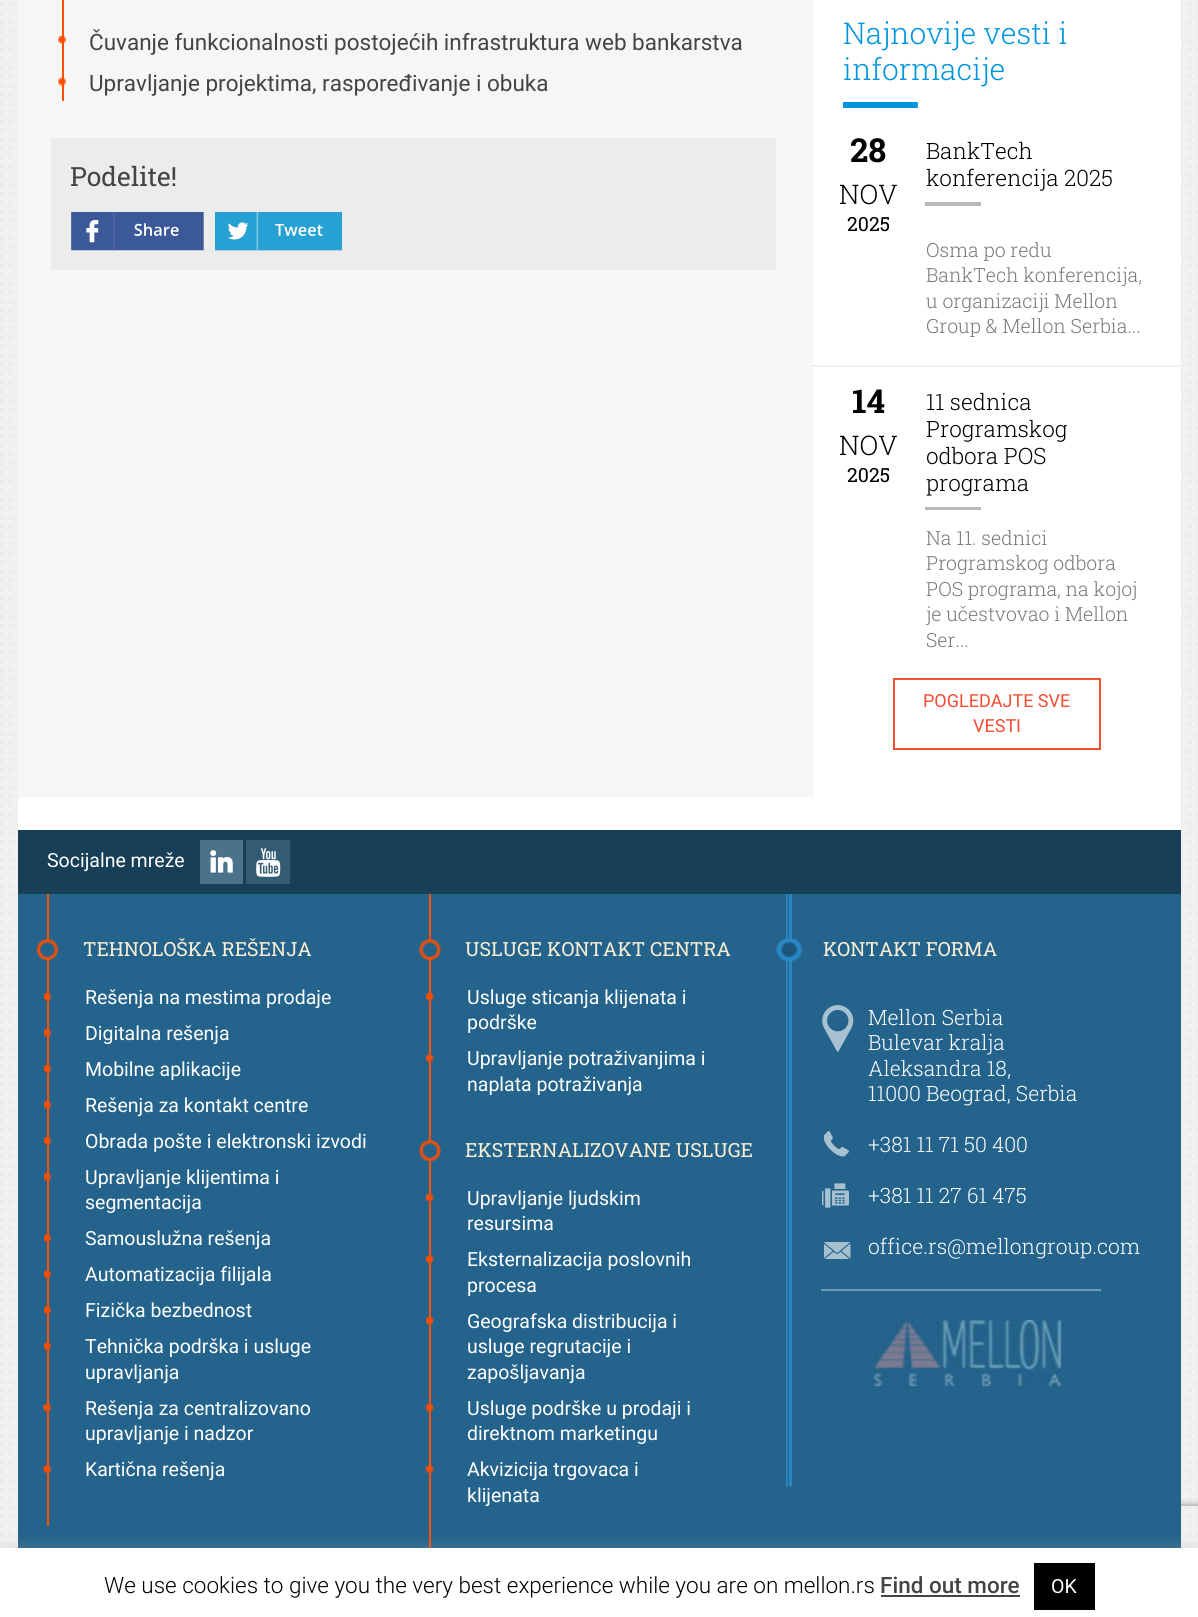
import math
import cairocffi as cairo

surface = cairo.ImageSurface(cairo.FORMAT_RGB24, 1198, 1617)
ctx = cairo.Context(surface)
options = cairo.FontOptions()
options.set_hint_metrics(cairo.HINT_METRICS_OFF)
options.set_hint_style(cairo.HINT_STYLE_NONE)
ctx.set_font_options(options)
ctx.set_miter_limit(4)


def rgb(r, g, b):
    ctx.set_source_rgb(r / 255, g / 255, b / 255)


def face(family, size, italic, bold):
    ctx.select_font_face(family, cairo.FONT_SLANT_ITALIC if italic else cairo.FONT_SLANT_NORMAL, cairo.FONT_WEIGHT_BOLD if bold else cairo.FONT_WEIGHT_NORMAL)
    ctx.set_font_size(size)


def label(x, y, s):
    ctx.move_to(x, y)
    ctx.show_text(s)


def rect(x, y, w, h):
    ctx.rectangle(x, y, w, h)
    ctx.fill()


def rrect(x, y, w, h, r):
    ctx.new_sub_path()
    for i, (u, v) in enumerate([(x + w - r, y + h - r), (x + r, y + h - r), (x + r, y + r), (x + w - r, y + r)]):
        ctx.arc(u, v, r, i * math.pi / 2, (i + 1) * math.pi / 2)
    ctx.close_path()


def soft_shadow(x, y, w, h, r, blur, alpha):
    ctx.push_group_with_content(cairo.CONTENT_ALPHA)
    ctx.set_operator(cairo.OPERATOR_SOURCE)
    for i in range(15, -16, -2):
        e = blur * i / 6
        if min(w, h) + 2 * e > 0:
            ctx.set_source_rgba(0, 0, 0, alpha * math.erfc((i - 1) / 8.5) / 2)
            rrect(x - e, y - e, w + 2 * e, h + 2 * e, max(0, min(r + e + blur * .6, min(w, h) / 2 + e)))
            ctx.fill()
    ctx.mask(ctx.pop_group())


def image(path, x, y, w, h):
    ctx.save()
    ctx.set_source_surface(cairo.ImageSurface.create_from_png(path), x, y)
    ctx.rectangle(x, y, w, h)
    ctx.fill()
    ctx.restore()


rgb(255, 255, 255)
ctx.paint()
image('image0.png', 0, 0, 1198, 1548)
rgb(255, 255, 255)
rect(18, 797, 1163, 33)
rgb(246, 246, 246)
rect(18, 0, 795, 797)
rgb(255, 78, 0)
rect(62, 0, 2, 101)
image('image1.png', 58, 36, 8, 8)
face('Roboto', 22.5, 0, 0)
rgb(68, 68, 68)
label(89, 50, 'Čuvanje funkcionalnosti postojećih infrastruktura web bankarstva')
image('image1.png', 58, 78, 8, 8)
label(89, 91, 'Upravljanje projektima, raspoređivanje i obuka')
rgb(236, 236, 236)
rect(51, 138, 725, 132)
face('Roboto Slab', 26.5, 0, 0)
rgb(68, 68, 68)
label(70, 186, 'Podelite!')
image('image2.png', 71, 212, 133, 39)
image('image3.png', 215, 212, 127, 39)
rgb(255, 255, 255)
rect(813, 0, 368, 797)
image('image4.png', 843, 102, 75, 6)
face('Roboto Slab Light', 30, 0, 0)
rgb(0, 149, 222)
label(843, 44, 'Najnovije vesti i')
label(843, 80, 'informacije')
rgb(240, 240, 240)
rect(813, 365, 368, 2)
face('Roboto Slab', 33, 0, 1)
rgb(0, 0, 0)
label(850, 162, '28')
face('Roboto Slab Light', 27, 0, 0)
label(839, 204, 'NOV')
face('Roboto Slab', 19.5, 0, 0)
label(847, 231, '2025')
rgb(185, 185, 185)
rect(925, 202, 56, 4)
face('Roboto Slab Light', 22.5, 0, 0)
rgb(0, 0, 0)
label(926, 159, 'BankTech')
label(926, 186, 'konferencija 2025')
face('Roboto Slab Light', 19.5, 0, 0)
rgb(121, 121, 121)
label(926, 257, 'Osma po redu')
label(926, 282, 'BankTech konferencija,')
label(926, 308, 'u organizaciji Mellon')
label(926, 333, 'Group & Mellon Serbia...')
face('Roboto Slab', 33, 0, 1)
rgb(0, 0, 0)
label(852, 413, '14')
face('Roboto Slab Light', 27, 0, 0)
label(839, 455, 'NOV')
face('Roboto Slab', 19.5, 0, 0)
label(847, 482, '2025')
rgb(185, 185, 185)
rect(925, 507, 56, 3)
face('Roboto Slab Light', 22.5, 0, 0)
rgb(0, 0, 0)
label(926, 410, '11 sednica')
label(926, 437, 'Programskog')
label(926, 464, 'odbora POS')
label(926, 491, 'programa')
face('Roboto Slab Light', 19.5, 0, 0)
rgb(121, 121, 121)
label(926, 545, 'Na 11. sednici')
label(926, 570, 'Programskog odbora')
label(926, 596, 'POS programa, na kojoj')
label(926, 621, 'je učestvovao i Mellon')
label(926, 647, 'Ser...')
ctx.rectangle(894, 679, 206, 70)
rgb(245, 77, 49)
ctx.stroke()
face('Roboto', 18, 0, 0)
label(923, 707, 'POGLEDAJTE SVE')
label(973, 732, 'VESTI')
ctx.save()
ctx.rectangle(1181, 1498, 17, 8)
ctx.clip()
rgb(128, 128, 128)
soft_shadow(1094, 1506, 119, 90, 3, 4, 1)
ctx.restore()
rgb(36, 99, 139)
rect(18, 894, 1163, 654)
rgb(23, 63, 88)
rect(18, 830, 1163, 64)
face('Roboto', 19.5, 0, 0)
rgb(255, 255, 255)
label(47, 867, 'Socijalne mreže')
rgb(74, 114, 139)
rect(200, 840, 43, 44)
image('image5.png', 210, 850, 23, 23)
rgb(51, 91, 116)
rect(246, 840, 44, 44)
image('image6.png', 256, 848, 25, 29)
rgb(255, 78, 0)
rect(47, 894, 2, 632)
image('image7.png', 36, 939, 23, 21)
face('Roboto Slab', 19.5, 0, 0)
rgb(250, 239, 213)
label(83, 956, 'TEHNOLOŠKA REŠENJA')
image('image8.png', 44, 993, 8, 8)
face('Roboto', 19.5, 0, 0)
rgb(255, 255, 255)
label(85, 1004, 'Rešenja na mestima prodaje')
image('image8.png', 44, 1029, 8, 8)
label(85, 1040, 'Digitalna rešenja')
image('image8.png', 44, 1065, 8, 8)
label(85, 1076, 'Mobilne aplikacije')
image('image8.png', 44, 1101, 8, 8)
label(85, 1112, 'Rešenja za kontakt centre')
image('image8.png', 44, 1137, 8, 8)
label(85, 1148, 'Obrada pošte i elektronski izvodi')
image('image8.png', 44, 1173, 8, 8)
label(85, 1184, 'Upravljanje klijentima i')
label(85, 1209, 'segmentacija')
image('image9.png', 44, 1234, 8, 8)
label(85, 1245, 'Samouslužna rešenja')
image('image9.png', 44, 1270, 8, 8)
label(85, 1281, 'Automatizacija filijala')
image('image9.png', 44, 1306, 8, 8)
label(85, 1317, 'Fizička bezbednost')
image('image9.png', 44, 1342, 8, 8)
label(85, 1353, 'Tehnička podrška i usluge')
label(85, 1379, 'upravljanja')
image('image10.png', 43, 1404, 8, 8)
label(85, 1415, 'Rešenja za centralizovano')
label(85, 1440, 'upravljanje i nadzor')
image('image11.png', 43, 1465, 8, 8)
label(85, 1476, 'Kartična rešenja')
rgb(255, 78, 0)
rect(429, 894, 2, 657)
image('image12.png', 418, 939, 24, 21)
face('Roboto Slab', 19.5, 0, 0)
rgb(250, 239, 213)
label(465, 956, 'USLUGE KONTAKT CENTRA')
image('image13.png', 426, 993, 8, 8)
face('Roboto', 19.5, 0, 0)
rgb(255, 255, 255)
label(467, 1004, 'Usluge sticanja klijenata i')
label(467, 1029, 'podrške')
image('image14.png', 426, 1054, 8, 8)
label(467, 1065, 'Upravljanje potraživanjima i')
label(467, 1091, 'naplata potraživanja')
image('image15.png', 418, 1140, 23, 21)
face('Roboto Slab', 19.5, 0, 0)
rgb(250, 239, 213)
label(465, 1157, 'EKSTERNALIZOVANE USLUGE')
image('image13.png', 426, 1194, 8, 8)
face('Roboto', 19.5, 0, 0)
rgb(255, 255, 255)
label(467, 1205, 'Upravljanje ljudskim')
label(467, 1230, 'resursima')
image('image14.png', 426, 1255, 8, 8)
label(467, 1266, 'Eksternalizacija poslovnih')
label(467, 1292, 'procesa')
image('image13.png', 426, 1317, 8, 8)
label(467, 1328, 'Geografska distribucija i')
label(467, 1353, 'usluge regrutacije i')
label(467, 1379, 'zapošljavanja')
image('image16.png', 425, 1404, 9, 8)
label(467, 1415, 'Usluge podrške u prodaji i')
label(467, 1440, 'direktnom marketingu')
image('image17.png', 425, 1465, 9, 8)
label(467, 1476, 'Akvizicija trgovaca i')
label(467, 1502, 'klijenata')
image('image18.png', 786, 894, 6, 593)
image('image19.png', 775, 937, 28, 25)
face('Roboto Slab', 19.5, 0, 0)
rgb(250, 239, 213)
label(823, 956, 'KONTAKT FORMA')
rgb(111, 152, 179)
rect(821, 1289, 280, 2)
image('image20.png', 822, 1005, 32, 47)
face('Roboto Slab Light', 21.1, 0, 0)
rgb(255, 255, 255)
label(868, 1025, 'Mellon Serbia')
label(868, 1050, 'Bulevar kralja')
label(868, 1076, 'Aleksandra 18,')
label(868, 1101, '11000 Beograd, Serbia')
image('image21.png', 824, 1131, 25, 26)
label(868, 1152, '+381 11 71 50 400')
image('image22.png', 822, 1183, 27, 25)
label(868, 1203, '+381 11 27 61 475')
image('image23.png', 824, 1242, 27, 17)
label(868, 1254, 'office.rs@mellongroup.com')
image('image24.png', 873, 1320, 191, 68)
rgb(172, 171, 171)
soft_shadow(0, 1547, 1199, 69, 0, 7.5, 0.3)
rgb(255, 255, 255)
rect(0, 1548, 1198, 69)
face('Roboto Light', 22.5, 0, 0)
rgb(0, 0, 0)
label(104, 1593, 'We use cookies to give you the very best experience while you are on mellon.rs')
face('Roboto Medium', 22.5, 0, 0)
rgb(68, 68, 68)
label(880, 1593, 'Find out more')
rect(881, 1595, 139, 2)
rgb(0, 0, 0)
rect(1034, 1563, 61, 47)
face('Roboto', 19.5, 0, 0)
rgb(255, 255, 255)
label(1051, 1593, 'OK')
surface.write_to_png('render.png')
